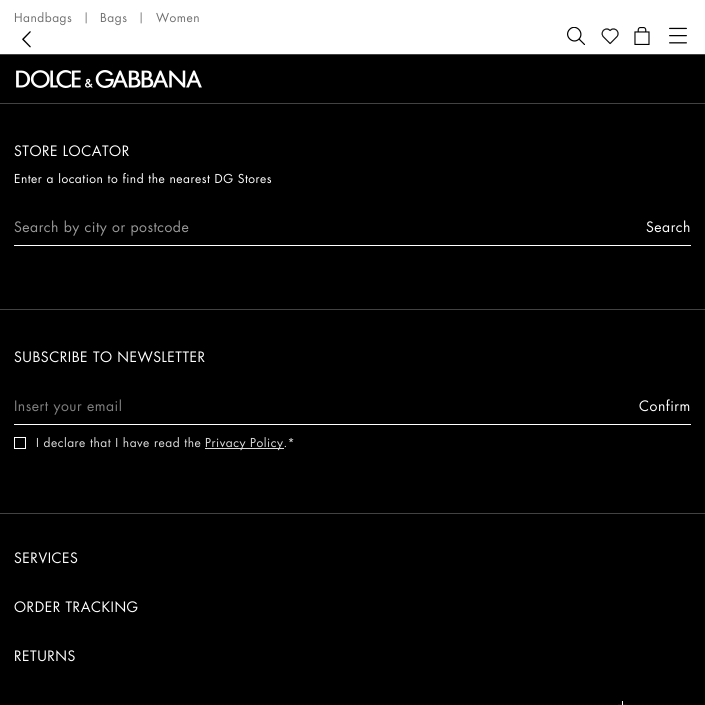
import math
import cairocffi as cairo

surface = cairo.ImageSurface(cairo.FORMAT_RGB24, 705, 705)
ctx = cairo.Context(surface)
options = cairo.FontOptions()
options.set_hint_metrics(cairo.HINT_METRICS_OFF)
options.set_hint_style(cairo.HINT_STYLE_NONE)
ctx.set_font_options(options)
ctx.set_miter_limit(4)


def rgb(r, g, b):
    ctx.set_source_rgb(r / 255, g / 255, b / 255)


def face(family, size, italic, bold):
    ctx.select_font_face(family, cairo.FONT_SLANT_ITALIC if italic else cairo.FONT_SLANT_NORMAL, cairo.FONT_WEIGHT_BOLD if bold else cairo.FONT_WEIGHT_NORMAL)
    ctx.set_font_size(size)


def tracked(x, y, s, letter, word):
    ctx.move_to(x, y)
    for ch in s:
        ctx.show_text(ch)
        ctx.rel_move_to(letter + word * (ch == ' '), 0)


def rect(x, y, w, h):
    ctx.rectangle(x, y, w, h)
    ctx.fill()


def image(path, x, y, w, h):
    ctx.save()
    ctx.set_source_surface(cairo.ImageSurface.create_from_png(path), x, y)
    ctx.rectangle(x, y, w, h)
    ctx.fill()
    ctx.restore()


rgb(255, 255, 255)
ctx.paint()
face('Futura', 12, 0, 0)
rgb(112, 112, 112)
tracked(14, 22, 'Handbags', 0.5, 0)
face('Futura', 11, 0, 0)
tracked(83, 21, '|', 0.5, 0)
face('Futura', 12, 0, 0)
tracked(100, 22, 'Bags', 0.5, 0)
face('Futura', 11, 0, 0)
tracked(138, 21, '|', 0.5, 0)
face('Futura', 12, 0, 0)
tracked(156, 22, 'Women', 0.5, 0)
image('image0.png', 22, 31, 9, 17)
ctx.save()
ctx.rectangle(567, 27, 18, 18)
ctx.clip()
ctx.new_path()
ctx.move_to(579, 39)
ctx.line_to(585, 45)
ctx.move_to(579, 39)
ctx.curve_to(585, 32.5, 575.5, 23, 569.5, 29.5)
ctx.curve_to(563.5, 36, 573, 45, 579, 39)
ctx.close_path()
rgb(0, 0, 0)
ctx.set_line_width(1.2)
ctx.stroke()
ctx.restore()
image('image1.png', 601, 28, 18, 17)
image('image2.png', 634, 27, 16, 18)
image('image3.png', 669, 27, 18, 17)
rgb(0, 0, 0)
rect(0, 55, 705, 650)
rgb(66, 66, 66)
rect(0, 54, 705, 1)
image('image4.png', 16, 70, 186, 18)
rect(0, 103, 705, 1)
rect(0, 309, 705, 1)
face('Futura', 14, 0, 0)
rgb(255, 255, 255)
tracked(14, 156, 'STORE LOCATOR', 0.5, 0)
face('Futura', 12, 0, 0)
tracked(14, 183, 'Enter a location to find the nearest DG Stores', 0.5, 0)
rect(14, 245, 677, 1)
face('Futura', 14, 0, 0)
rgb(153, 153, 153)
tracked(14, 232, 'Search by city or postcode', 0.5, 0)
rgb(255, 255, 255)
tracked(646, 232, 'Search', 0.5, 0)
tracked(14, 362, 'SUBSCRIBE TO NEWSLETTER', 0.5, 0)
rect(14, 424, 677, 1)
rgb(128, 128, 128)
tracked(14, 411, 'Insert your email', 0.5, 0)
rgb(255, 255, 255)
tracked(639, 411, 'Confirm', 0.5, 0)
ctx.rectangle(14.5, 437.5, 11, 11)
ctx.set_line_width(1)
ctx.stroke()
face('Futura', 12, 0, 0)
rgb(221, 221, 221)
tracked(36, 447, 'I declare that I have read the', 0.5, 0)
rect(205, 448, 79, 1)
tracked(205, 447, 'Privacy Policy.*', 0.5, 0)
rgb(66, 66, 66)
rect(0, 513, 705, 1)
face('Futura', 14, 0, 0)
rgb(255, 255, 255)
tracked(14, 563, 'SERVICES', 0.5, 0)
tracked(14, 612, 'ORDER TRACKING', 0.5, 0)
tracked(14, 661, 'RETURNS', 0.5, 0)
image('image5.png', 618, 701, 9, 4)
surface.write_to_png('render.png')
